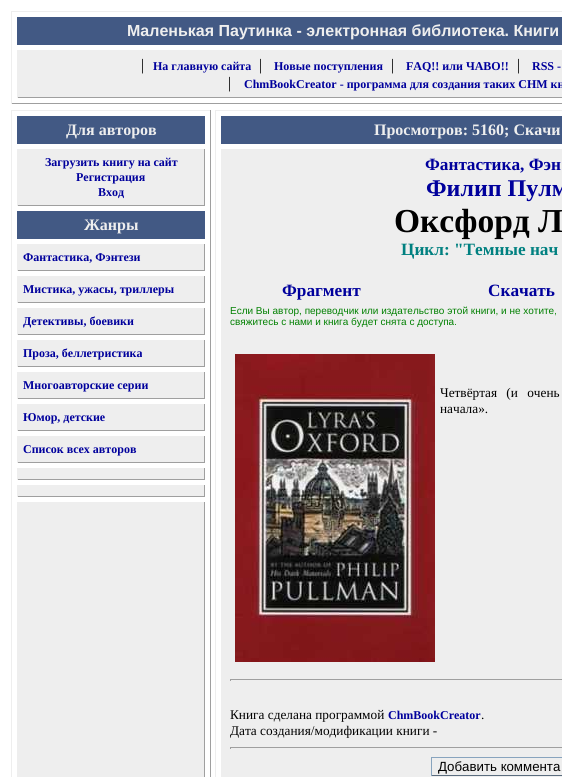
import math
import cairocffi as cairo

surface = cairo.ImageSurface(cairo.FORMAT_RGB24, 562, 777)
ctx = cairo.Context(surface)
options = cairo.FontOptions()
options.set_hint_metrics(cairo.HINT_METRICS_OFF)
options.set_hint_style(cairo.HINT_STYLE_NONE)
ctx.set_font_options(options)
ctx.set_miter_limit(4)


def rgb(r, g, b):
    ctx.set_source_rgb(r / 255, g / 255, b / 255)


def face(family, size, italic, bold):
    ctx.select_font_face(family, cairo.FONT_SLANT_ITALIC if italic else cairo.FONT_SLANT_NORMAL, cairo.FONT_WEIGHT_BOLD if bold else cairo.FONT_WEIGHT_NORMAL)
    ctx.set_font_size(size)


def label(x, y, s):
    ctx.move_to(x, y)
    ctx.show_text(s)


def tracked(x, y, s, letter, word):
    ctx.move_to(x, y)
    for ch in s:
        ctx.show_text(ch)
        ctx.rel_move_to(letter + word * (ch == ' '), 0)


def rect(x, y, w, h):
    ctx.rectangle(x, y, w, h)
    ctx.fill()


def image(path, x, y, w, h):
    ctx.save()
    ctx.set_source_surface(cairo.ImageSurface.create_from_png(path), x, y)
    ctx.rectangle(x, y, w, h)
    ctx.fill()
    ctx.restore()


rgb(255, 255, 255)
ctx.paint()
rgb(238, 238, 238)
rect(11, 11, 551, 1)
rgb(159, 159, 159)
rect(11, 103, 551, 1)
rgb(238, 238, 238)
rect(11, 11, 1, 93)
rgb(66, 89, 132)
rect(17, 17, 545, 28)
face('Liberation Sans', 16, 0, 1)
rgb(238, 238, 238)
label(127, 36, 'Маленькая Паутинка - электронная библиотека. Книги')
rect(18, 50, 544, 47)
rgb(159, 159, 159)
rect(17, 97, 545, 1)
rgb(238, 238, 238)
rect(17, 50, 1, 48)
face('Liberation Serif', 16, 0, 0)
rgb(0, 0, 0)
label(141, 70, '|')
face('Liberation Serif', 12, 0, 1)
rgb(0, 0, 156)
label(153, 70, 'На главную сайта')
face('Liberation Serif', 16, 0, 0)
rgb(0, 0, 0)
label(259, 70, '|')
face('Liberation Serif', 12, 0, 1)
rgb(0, 0, 156)
label(274, 70, 'Новые поступления')
face('Liberation Serif', 16, 0, 0)
rgb(0, 0, 0)
label(391, 70, '|')
face('Liberation Serif', 12, 0, 1)
rgb(0, 0, 156)
label(406, 70, 'FAQ!! или ЧАВО!!')
face('Liberation Serif', 16, 0, 0)
rgb(0, 0, 0)
label(517, 70, '|')
face('Liberation Serif', 12, 0, 1)
rgb(0, 0, 156)
label(532, 70, 'RSS -')
face('Liberation Serif', 16, 0, 0)
rgb(0, 0, 0)
label(228, 88, '|')
face('Liberation Serif', 12, 0, 1)
rgb(0, 0, 156)
label(244, 88, 'ChmBookCreator - программа для создания таких CHM кн')
rgb(238, 238, 238)
rect(11, 110, 200, 1)
rgb(159, 159, 159)
rect(210, 110, 1, 667)
rgb(238, 238, 238)
rect(11, 110, 1, 667)
rgb(66, 89, 132)
rect(17, 116, 188, 28)
face('Liberation Serif', 16, 0, 1)
rgb(238, 238, 238)
label(66, 135, 'Для авторов')
rect(18, 149, 186, 56)
rgb(159, 159, 159)
rect(204, 149, 1, 57)
rect(17, 205, 188, 1)
rgb(238, 238, 238)
rect(17, 149, 1, 57)
face('Liberation Serif', 12, 0, 1)
rgb(0, 0, 156)
label(45, 166, 'Загрузить книгу на сайт')
label(76, 181, 'Регистрация')
label(98, 196, 'Вход')
rgb(66, 89, 132)
rect(17, 211, 188, 28)
face('Liberation Serif', 16, 0, 1)
rgb(238, 238, 238)
label(84, 230, 'Жанры')
rect(18, 244, 186, 26)
rgb(159, 159, 159)
rect(204, 244, 1, 27)
rect(17, 270, 188, 1)
rgb(238, 238, 238)
rect(17, 244, 1, 27)
face('Liberation Serif', 12, 0, 1)
rgb(0, 0, 156)
label(23, 261, 'Фантастика, Фэнтези')
rgb(238, 238, 238)
rect(18, 276, 186, 26)
rgb(159, 159, 159)
rect(204, 276, 1, 27)
rect(17, 302, 188, 1)
rgb(238, 238, 238)
rect(17, 276, 1, 27)
rgb(0, 0, 156)
label(23, 293, 'Мистика, ужасы, триллеры')
rgb(238, 238, 238)
rect(18, 308, 186, 26)
rgb(159, 159, 159)
rect(204, 308, 1, 27)
rect(17, 334, 188, 1)
rgb(238, 238, 238)
rect(17, 308, 1, 27)
rgb(0, 0, 156)
label(23, 325, 'Детективы, боевики')
rgb(238, 238, 238)
rect(18, 340, 186, 26)
rgb(159, 159, 159)
rect(204, 340, 1, 27)
rect(17, 366, 188, 1)
rgb(238, 238, 238)
rect(17, 340, 1, 27)
rgb(0, 0, 156)
label(23, 357, 'Проза, беллетристика')
rgb(238, 238, 238)
rect(18, 372, 186, 26)
rgb(159, 159, 159)
rect(204, 372, 1, 27)
rect(17, 398, 188, 1)
rgb(238, 238, 238)
rect(17, 372, 1, 27)
rgb(0, 0, 156)
label(23, 389, 'Многоавторские серии')
rgb(238, 238, 238)
rect(18, 404, 186, 26)
rgb(159, 159, 159)
rect(204, 404, 1, 27)
rect(17, 430, 188, 1)
rgb(238, 238, 238)
rect(17, 404, 1, 27)
rgb(0, 0, 156)
label(23, 421, 'Юмор, детские')
rgb(238, 238, 238)
rect(18, 436, 186, 26)
rgb(159, 159, 159)
rect(204, 436, 1, 27)
rect(17, 462, 188, 1)
rgb(238, 238, 238)
rect(17, 436, 1, 27)
rgb(0, 0, 156)
label(23, 453, 'Список всех авторов')
rgb(238, 238, 238)
rect(18, 468, 186, 11)
rgb(159, 159, 159)
rect(204, 468, 1, 12)
rect(17, 479, 188, 1)
rgb(238, 238, 238)
rect(17, 468, 1, 12)
rect(18, 485, 186, 11)
rgb(159, 159, 159)
rect(204, 485, 1, 12)
rect(17, 496, 188, 1)
rgb(238, 238, 238)
rect(17, 485, 1, 12)
rect(17, 502, 187, 275)
rgb(159, 159, 159)
rect(204, 502, 1, 275)
rgb(238, 238, 238)
rect(215, 110, 347, 1)
rect(215, 110, 1, 667)
rgb(66, 89, 132)
rect(221, 116, 341, 28)
face('Liberation Serif', 16, 0, 1)
rgb(238, 238, 238)
label(374, 135, 'Просмотров: 5160; Скачи')
rect(221, 149, 341, 628)
face('Liberation Serif', 17.25, 0, 1)
rgb(0, 0, 156)
label(425, 170, 'Фантастика, Фэн')
face('Liberation Serif', 24, 0, 1)
label(426, 196, 'Филип Пулм')
face('Liberation Serif', 33.5, 0, 1)
rgb(0, 0, 0)
label(394, 232, 'Оксфорд Л')
face('Liberation Serif', 17.25, 0, 1)
rgb(0, 128, 128)
label(401, 255, 'Цикл: "Темные нач')
rgb(0, 0, 156)
label(282, 296, 'Фрагмент')
label(488, 296, 'Скачать')
face('Liberation Sans', 10, 0, 0)
rgb(0, 128, 0)
label(230, 314, 'Если Вы автор, переводчик или издательство этой книги, и не хотите,')
label(230, 325, 'свяжитесь с нами и книга будет снята с доступа.')
image('image0.png', 235, 354, 200, 308)
face('Liberation Serif', 13.3, 0, 0)
rgb(0, 0, 0)
tracked(440, 397, 'Четвёртая (и очень', 0, 6)
label(440, 413, 'начала».')
rgb(159, 159, 159)
rect(230, 679, 332, 1)
rect(230, 679, 1, 2)
rgb(0, 0, 0)
label(230, 719, 'Книга сделана программой')
face('Liberation Serif', 12, 0, 1)
rgb(0, 0, 156)
label(388, 719, 'ChmBookCreator')
face('Liberation Serif', 13.3, 0, 0)
rgb(0, 0, 0)
label(481, 719, '.')
label(230, 735, 'Дата создания/модификации книги -')
rgb(159, 159, 159)
rect(230, 747, 332, 1)
rect(230, 747, 1, 2)
rgb(136, 164, 190)
rect(431, 757, 131, 1)
rgb(91, 109, 127)
rect(431, 775, 131, 1)
rgb(136, 164, 190)
rect(431, 757, 1, 19)
face('Liberation Sans', 13.3, 0, 0)
rgb(0, 0, 0)
label(438, 771, 'Добавить коммента')
surface.write_to_png('render.png')
